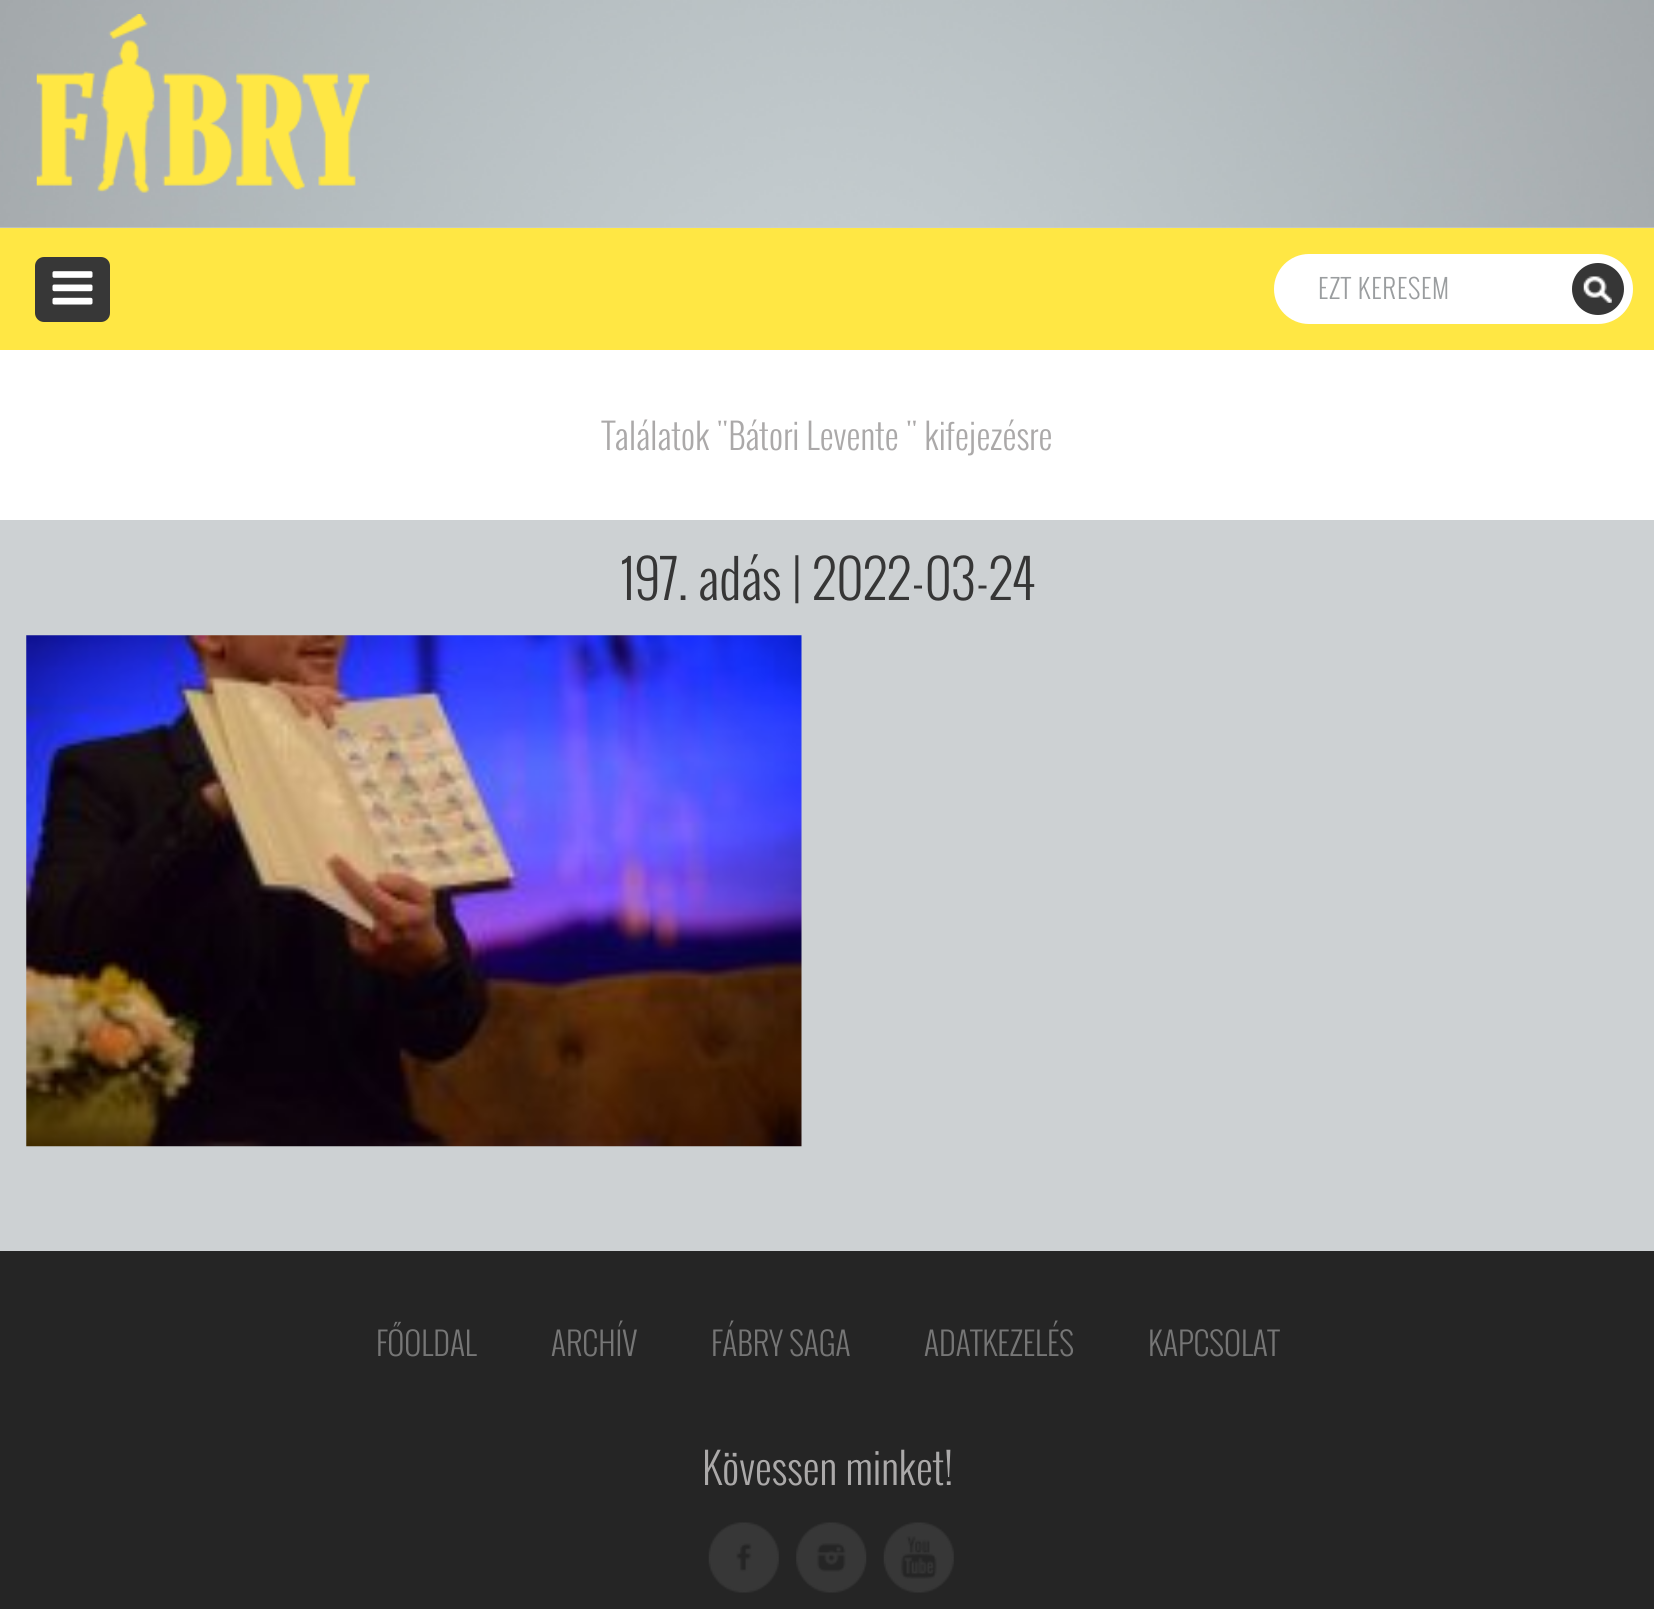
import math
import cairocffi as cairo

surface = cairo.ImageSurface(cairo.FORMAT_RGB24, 1654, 1609)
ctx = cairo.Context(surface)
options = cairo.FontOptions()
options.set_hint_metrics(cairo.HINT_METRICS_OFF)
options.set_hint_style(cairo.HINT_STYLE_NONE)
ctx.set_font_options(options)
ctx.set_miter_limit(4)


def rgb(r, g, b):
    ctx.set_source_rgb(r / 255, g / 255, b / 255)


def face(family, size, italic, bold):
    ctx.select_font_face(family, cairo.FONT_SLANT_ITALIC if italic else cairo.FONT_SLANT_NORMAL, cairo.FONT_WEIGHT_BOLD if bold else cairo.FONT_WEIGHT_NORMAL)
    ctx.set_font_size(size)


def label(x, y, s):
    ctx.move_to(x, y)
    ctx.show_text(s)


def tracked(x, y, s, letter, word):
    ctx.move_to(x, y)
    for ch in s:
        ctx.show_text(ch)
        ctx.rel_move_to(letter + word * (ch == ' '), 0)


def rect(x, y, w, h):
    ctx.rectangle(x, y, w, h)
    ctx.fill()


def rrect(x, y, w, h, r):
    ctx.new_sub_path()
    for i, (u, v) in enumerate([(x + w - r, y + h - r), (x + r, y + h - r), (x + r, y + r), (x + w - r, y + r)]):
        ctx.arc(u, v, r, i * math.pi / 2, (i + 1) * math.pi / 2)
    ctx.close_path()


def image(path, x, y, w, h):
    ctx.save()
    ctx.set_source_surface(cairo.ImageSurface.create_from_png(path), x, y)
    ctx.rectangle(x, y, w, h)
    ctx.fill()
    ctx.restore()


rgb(205, 209, 211)
ctx.paint()
image('image0.png', 0, 0, 1654, 228)
image('image1.png', 36, 14, 334, 179)
rgb(255, 231, 68)
rect(0, 228, 1654, 122)
rgb(55, 55, 55)
rrect(35, 257, 75, 65, 9)
ctx.fill()
image('image2.png', 52, 271, 41, 34)
rgb(255, 255, 255)
rrect(1274, 254, 359, 70, 35)
ctx.fill()
face('Oswald Light', 26.25, 0, 0)
rgb(154, 157, 159)
tracked(1318, 299, 'EZT KERESEM', 0.9, 0)
rgb(54, 54, 54)
ctx.new_path()
ctx.arc(1598, 289, 26, 0, 2 * math.pi)
ctx.fill()
image('image3.png', 1583, 276, 29, 27)
rgb(255, 255, 255)
rect(0, 350, 1654, 170)
face('Oswald Light', 35, 0, 0)
rgb(171, 169, 169)
label(602, 450, 'Találatok "Bátori Levente " kifejezésre')
face('Oswald Light', 52.5, 0, 0)
rgb(54, 54, 54)
label(621, 600, '197. adás | 2022-03-24')
image('image4.png', 26, 635, 776, 512)
rgb(37, 37, 37)
rect(0, 1251, 1654, 358)
face('Oswald Light', 31.5, 0, 0)
rgb(118, 118, 118)
label(376, 1356, 'FŐOLDAL')
label(551, 1356, 'ARCHÍV')
label(711, 1356, 'FÁBRY SAGA')
label(924, 1356, 'ADATKEZELÉS')
label(1148, 1356, 'KAPCSOLAT')
face('Oswald Light', 42, 0, 0)
rgb(171, 169, 169)
label(702, 1485, 'Kövessen minket!')
image('image5.png', 708, 1522, 71, 71)
image('image6.png', 796, 1522, 71, 71)
image('image7.png', 883, 1522, 71, 71)
surface.write_to_png('render.png')
